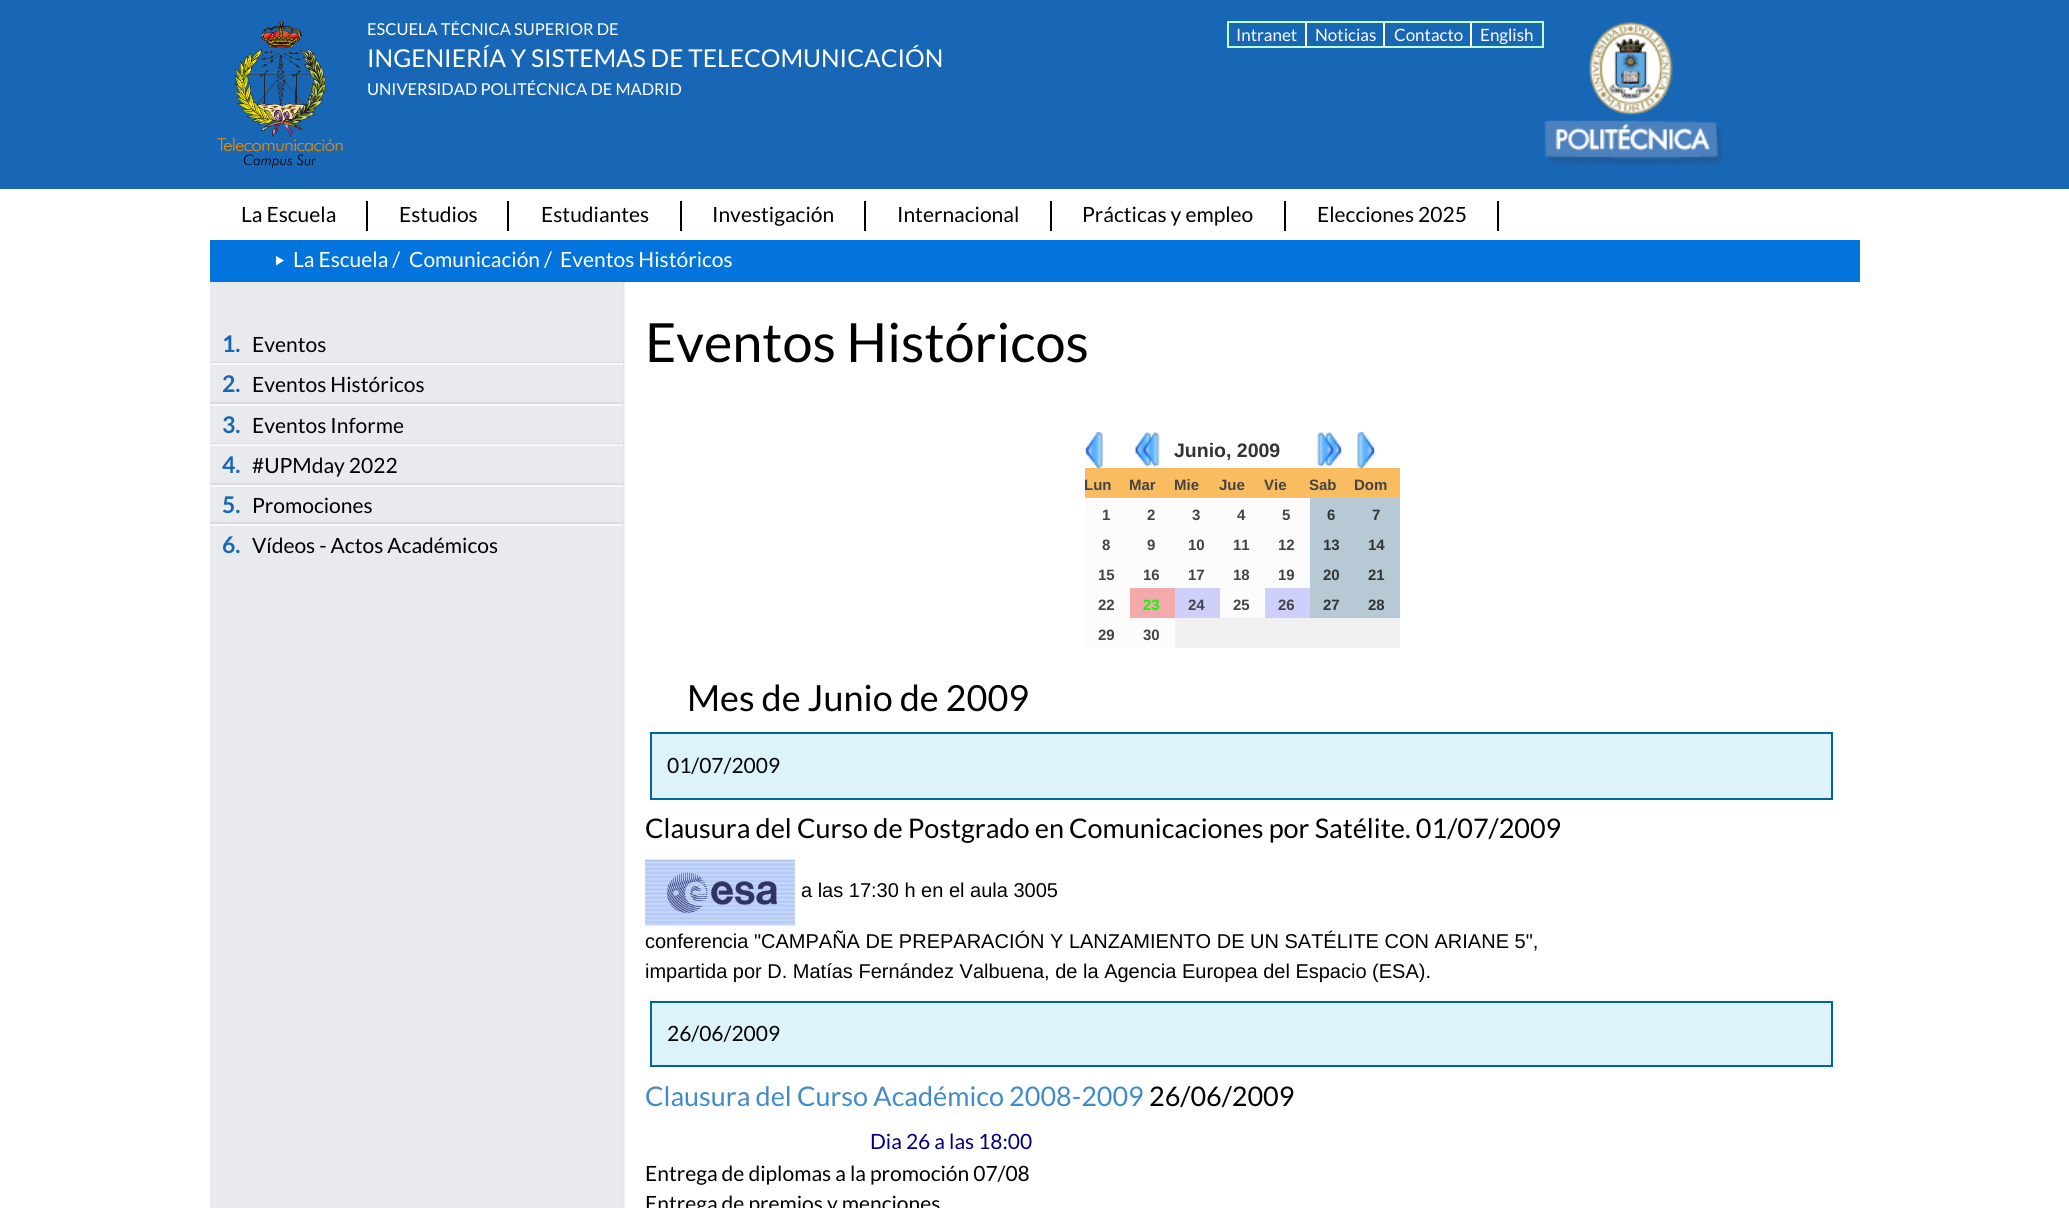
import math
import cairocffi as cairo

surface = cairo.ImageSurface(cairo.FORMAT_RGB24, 2069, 1208)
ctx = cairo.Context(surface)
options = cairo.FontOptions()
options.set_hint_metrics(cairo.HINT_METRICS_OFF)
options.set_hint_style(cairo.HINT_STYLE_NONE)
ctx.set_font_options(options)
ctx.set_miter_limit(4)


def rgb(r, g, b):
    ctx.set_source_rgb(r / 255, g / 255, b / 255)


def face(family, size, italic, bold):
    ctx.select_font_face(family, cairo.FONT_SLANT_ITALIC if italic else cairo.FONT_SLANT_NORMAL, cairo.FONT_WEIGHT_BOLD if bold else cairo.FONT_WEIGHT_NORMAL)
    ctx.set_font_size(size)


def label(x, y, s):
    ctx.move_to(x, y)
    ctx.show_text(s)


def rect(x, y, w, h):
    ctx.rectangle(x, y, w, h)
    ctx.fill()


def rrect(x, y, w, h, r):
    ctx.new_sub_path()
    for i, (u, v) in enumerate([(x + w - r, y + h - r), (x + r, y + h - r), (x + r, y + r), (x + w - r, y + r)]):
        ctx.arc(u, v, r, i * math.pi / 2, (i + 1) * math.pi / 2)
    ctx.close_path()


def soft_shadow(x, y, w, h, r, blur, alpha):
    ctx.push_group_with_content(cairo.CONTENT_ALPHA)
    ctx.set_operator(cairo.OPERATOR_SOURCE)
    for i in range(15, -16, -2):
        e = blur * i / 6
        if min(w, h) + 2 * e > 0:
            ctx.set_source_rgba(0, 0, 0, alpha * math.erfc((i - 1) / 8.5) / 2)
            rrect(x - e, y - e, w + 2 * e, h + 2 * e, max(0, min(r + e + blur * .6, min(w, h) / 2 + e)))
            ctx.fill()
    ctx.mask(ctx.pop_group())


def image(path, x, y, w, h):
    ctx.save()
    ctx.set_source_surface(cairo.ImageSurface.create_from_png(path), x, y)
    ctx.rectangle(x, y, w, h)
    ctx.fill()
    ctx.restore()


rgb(255, 255, 255)
ctx.paint()
rgb(24, 103, 183)
rect(0, 0, 2069, 189)
image('image0.png', 217, 21, 126, 147)
ctx.save()
ctx.rectangle(366, 21, 576, 98)
ctx.clip()
face('Lato', 16.4, 0, 0)
rgb(255, 255, 255)
label(367, 35, 'ESCUELA TÉCNICA SUPERIOR DE')
ctx.restore()
face('Lato', 24.6, 0, 0)
rgb(255, 255, 255)
label(367, 67, 'INGENIERÍA Y SISTEMAS DE TELECOMUNICACIÓN')
face('Lato', 16.4, 0, 0)
label(367, 95, 'UNIVERSIDAD POLITÉCNICA DE MADRID')
ctx.rectangle(1228, 22, 315, 25)
rgb(192, 255, 192)
ctx.stroke()
rgb(255, 255, 255)
rect(1305, 23, 2, 24)
face('Lato', 17, 0, 0)
label(1236, 41, 'Intranet')
rect(1383, 23, 2, 24)
label(1315, 41, 'Noticias')
rect(1470, 23, 2, 24)
label(1394, 41, 'Contacto')
label(1480, 41, 'English')
image('image1.png', 1544, 22, 179, 145)
face('Lato', 21, 0, 0)
rgb(0, 0, 0)
label(241, 222, 'La Escuela')
rect(366, 201, 2, 30)
label(399, 222, 'Estudios')
rect(507, 201, 2, 30)
label(541, 222, 'Estudiantes')
rect(680, 201, 2, 30)
label(712, 222, 'Investigación')
rect(864, 201, 2, 30)
label(897, 222, 'Internacional')
rect(1050, 201, 2, 30)
label(1082, 222, 'Prácticas y empleo')
rect(1284, 201, 2, 30)
label(1317, 222, 'Elecciones 2025')
rect(1497, 201, 2, 30)
rgb(3, 116, 221)
rect(210, 240, 1650, 42)
rgb(255, 255, 255)
ctx.new_path()
ctx.move_to(276, 265.5)
ctx.line_to(284, 260.5)
ctx.line_to(276, 256)
ctx.close_path()
ctx.fill()
label(293, 267, 'La Escuela /')
label(409, 267, 'Comunicación /')
label(560, 267, 'Eventos Históricos')
rgb(50, 50, 50)
soft_shadow(212, 282, 412, 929, 0, 1, 0.2)
rgb(232, 234, 237)
rect(210, 282, 413, 926)
rgb(218, 221, 224)
rect(210, 362, 413, 1)
face('Lato', 23, 0, 1)
rgb(24, 103, 183)
label(222, 352, '1.')
face('Lato', 21, 0, 0)
rgb(0, 0, 0)
label(252, 352, 'Eventos')
rgb(247, 248, 249)
rect(210, 363, 413, 2)
rgb(218, 221, 224)
rect(210, 402, 413, 2)
face('Lato', 23, 0, 1)
rgb(24, 103, 183)
label(222, 392, '2.')
face('Lato', 21, 0, 0)
rgb(0, 0, 0)
label(252, 392, 'Eventos Históricos')
rgb(247, 248, 249)
rect(210, 404, 413, 2)
rgb(218, 221, 224)
rect(210, 443, 413, 1)
face('Lato', 23, 0, 1)
rgb(24, 103, 183)
label(222, 433, '3.')
face('Lato', 21, 0, 0)
rgb(0, 0, 0)
label(252, 433, 'Eventos Informe')
rgb(247, 248, 249)
rect(210, 444, 413, 2)
rgb(218, 221, 224)
rect(210, 483, 413, 2)
face('Lato', 23, 0, 1)
rgb(24, 103, 183)
label(222, 473, '4.')
face('Lato', 21, 0, 0)
rgb(0, 0, 0)
label(252, 473, '#UPMday 2022')
rgb(247, 248, 249)
rect(210, 485, 413, 2)
rgb(218, 221, 224)
rect(210, 522, 413, 2)
face('Lato', 23, 0, 1)
rgb(24, 103, 183)
label(222, 513, '5.')
face('Lato', 21, 0, 0)
rgb(0, 0, 0)
label(252, 513, 'Promociones')
rgb(247, 248, 249)
rect(210, 524, 413, 2)
face('Lato', 23, 0, 1)
rgb(24, 103, 183)
label(222, 553, '6.')
face('Lato', 21, 0, 0)
rgb(0, 0, 0)
label(252, 553, 'Vídeos - Actos Académicos')
face('Lato', 54, 0, 0)
label(645, 362, 'Eventos Históricos')
image('image2.png', 1085, 432, 18, 36)
image('image3.png', 1135, 432, 25, 35)
face('Liberation Sans', 19.5, 0, 1)
rgb(51, 51, 51)
label(1174, 457, 'Junio, 2009')
image('image4.png', 1316, 432, 26, 35)
image('image5.png', 1357, 432, 18, 36)
rgb(249, 188, 96)
rect(1085, 468, 315, 30)
face('Liberation Sans', 15, 0, 1)
rgb(68, 68, 68)
label(1084, 490, 'Lun')
label(1129, 490, 'Mar')
label(1174, 490, 'Mie')
label(1219, 490, 'Jue')
label(1264, 490, 'Vie')
label(1309, 490, 'Sab')
label(1354, 490, 'Dom')
rgb(252, 252, 252)
rect(1085, 498, 225, 30)
rgb(68, 68, 68)
label(1102, 520, '1')
label(1147, 520, '2')
label(1192, 520, '3')
label(1237, 520, '4')
label(1282, 520, '5')
rgb(182, 201, 212)
rect(1310, 498, 90, 30)
rgb(51, 51, 51)
label(1327, 520, '6')
label(1372, 520, '7')
rgb(252, 252, 252)
rect(1085, 528, 225, 30)
rgb(68, 68, 68)
label(1102, 550, '8')
label(1147, 550, '9')
label(1188, 550, '10')
label(1233, 550, '11')
label(1278, 550, '12')
rgb(182, 201, 212)
rect(1310, 528, 90, 30)
rgb(51, 51, 51)
label(1323, 550, '13')
label(1368, 550, '14')
rgb(252, 252, 252)
rect(1085, 558, 225, 30)
rgb(68, 68, 68)
label(1098, 580, '15')
label(1143, 580, '16')
label(1188, 580, '17')
label(1233, 580, '18')
label(1278, 580, '19')
rgb(182, 201, 212)
rect(1310, 558, 90, 30)
rgb(51, 51, 51)
label(1323, 580, '20')
label(1368, 580, '21')
rgb(252, 252, 252)
rect(1085, 588, 45, 60)
rgb(68, 68, 68)
label(1098, 610, '22')
rgb(244, 170, 170)
rect(1130, 588, 45, 30)
rgb(0, 255, 0)
label(1143, 610, '23')
rgb(207, 207, 252)
rect(1175, 588, 45, 30)
rgb(68, 68, 68)
label(1188, 610, '24')
rgb(252, 252, 252)
rect(1220, 588, 45, 30)
rgb(68, 68, 68)
label(1233, 610, '25')
rgb(207, 207, 252)
rect(1265, 588, 45, 30)
rgb(68, 68, 68)
label(1278, 610, '26')
rgb(182, 201, 212)
rect(1310, 588, 90, 30)
rgb(51, 51, 51)
label(1323, 610, '27')
label(1368, 610, '28')
rgb(68, 68, 68)
label(1098, 640, '29')
rgb(252, 252, 252)
rect(1130, 618, 45, 30)
rgb(68, 68, 68)
label(1143, 640, '30')
rgb(240, 240, 240)
rect(1175, 618, 225, 30)
face('Lato', 36, 0, 0)
rgb(0, 0, 0)
label(687, 711, 'Mes de Junio de 2009')
rgb(220, 243, 250)
ctx.rectangle(651, 733, 1181, 66)
ctx.fill_preserve()
rgb(0, 102, 153)
ctx.stroke()
face('Lato', 21, 0, 0)
rgb(0, 0, 0)
label(667, 773, '01/07/2009')
face('Lato', 27, 0, 0)
label(645, 838, 'Clausura del Curso de Postgrado en Comunicaciones por Satélite. 01/07/2009')
image('image6.png', 645, 859, 150, 67)
face('Liberation Sans', 20, 0, 0)
label(801, 897, 'a las 17:30 h en el aula 3005')
label(645, 948, 'conferencia "CAMPAÑA DE PREPARACIÓN Y LANZAMIENTO DE UN SATÉLITE CON ARIANE 5",')
label(645, 978, 'impartida por D. Matías Fernández Valbuena, de la Agencia Europea del Espacio (ESA).')
rgb(220, 243, 250)
ctx.rectangle(651, 1002, 1181, 64)
ctx.fill_preserve()
rgb(0, 102, 153)
ctx.stroke()
face('Lato', 21, 0, 0)
rgb(0, 0, 0)
label(667, 1041, '26/06/2009')
face('Lato', 27, 0, 0)
rgb(66, 139, 202)
label(645, 1106, 'Clausura del Curso Académico 2008-2009')
rgb(0, 0, 0)
label(1149, 1106, '26/06/2009')
face('Lato', 21, 0, 0)
rgb(0, 0, 128)
label(870, 1149, 'Dia 26 a las 18:00')
rgb(0, 0, 0)
label(645, 1181, 'Entrega de diplomas a la promoción 07/08')
label(645, 1211, 'Entrega de premios y menciones')
surface.write_to_png('render.png')
